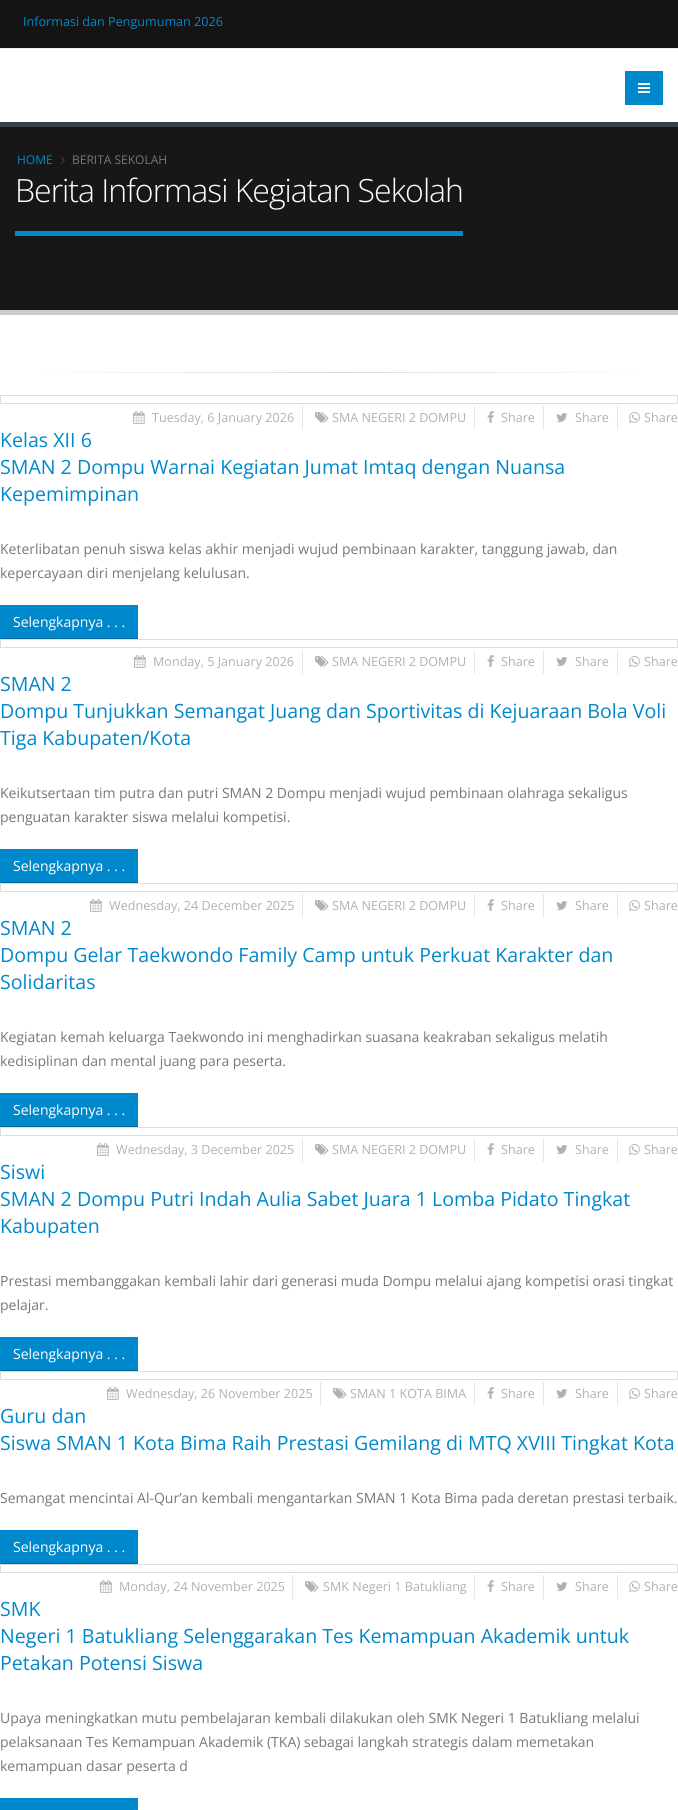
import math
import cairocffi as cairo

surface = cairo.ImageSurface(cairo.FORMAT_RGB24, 678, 1810)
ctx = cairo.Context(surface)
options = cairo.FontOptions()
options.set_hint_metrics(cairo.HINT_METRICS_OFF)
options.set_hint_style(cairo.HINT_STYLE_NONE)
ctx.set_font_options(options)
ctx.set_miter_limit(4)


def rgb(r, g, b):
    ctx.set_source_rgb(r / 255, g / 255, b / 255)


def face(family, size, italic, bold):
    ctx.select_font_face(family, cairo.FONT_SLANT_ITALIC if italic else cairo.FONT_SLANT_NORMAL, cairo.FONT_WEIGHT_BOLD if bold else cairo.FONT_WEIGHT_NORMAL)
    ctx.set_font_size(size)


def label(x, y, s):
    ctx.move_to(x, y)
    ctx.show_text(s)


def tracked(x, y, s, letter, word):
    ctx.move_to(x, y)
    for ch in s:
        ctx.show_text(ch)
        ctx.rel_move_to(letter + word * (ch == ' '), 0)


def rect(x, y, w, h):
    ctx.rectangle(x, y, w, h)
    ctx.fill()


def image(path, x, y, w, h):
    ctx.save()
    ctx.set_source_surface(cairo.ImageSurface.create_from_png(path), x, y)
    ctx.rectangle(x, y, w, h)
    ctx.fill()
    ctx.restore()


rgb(255, 255, 255)
ctx.paint()
rgb(21, 20, 20)
rect(0, 0, 678, 48)
rgb(237, 237, 237)
rect(0, 48, 678, 1)
face('Open Sans', 12.6, 0, 0)
rgb(0, 136, 204)
label(23, 26, 'Informasi dan Pengumuman 2026')
rect(625, 71, 38, 34)
image('image0.png', 638, 83, 12, 10)
rgb(23, 23, 23)
rect(0, 127, 678, 183)
rgb(56, 64, 69)
rect(0, 122, 678, 5)
rgb(204, 204, 204)
rect(0, 310, 678, 5)
face('Open Sans', 12, 0, 0)
rgb(0, 136, 204)
label(17, 164, 'HOME')
image('image1.png', 61, 157, 4, 7)
rgb(119, 119, 119)
label(72, 164, 'BERITA SEKOLAH')
rgb(0, 136, 204)
rect(15, 231, 448, 5)
face('Open Sans Light', 32, 0, 0)
rgb(255, 255, 255)
tracked(15, 202, 'Berita Informasi Kegiatan Sekolah', -1, 0)
gradient = cairo.LinearGradient(15, 373, 663, 373)
gradient.add_color_stop_rgba(0, 1, 1, 1, 1)
gradient.add_color_stop_rgba(0.5, 0.859, 0.859, 0.859, 1)
gradient.add_color_stop_rgba(1, 1, 1, 1, 1)
ctx.set_source(gradient)
rect(38, 372, 603, 1)
ctx.rectangle(0.5, 395.5, 677, 8)
rgb(221, 221, 221)
ctx.set_line_width(1)
ctx.stroke()
rgb(230, 230, 230)
rect(302, 406, 1, 24)
image('image2.png', 133, 411, 12, 13)
face('Open Sans', 12.6, 0, 0)
rgb(177, 177, 177)
label(152, 422, 'Tuesday, 6 January 2026')
rgb(230, 230, 230)
rect(474, 406, 1, 24)
image('image3.png', 315, 412, 14, 11)
rgb(177, 177, 177)
label(332, 422, 'SMA NEGERI 2 DOMPU')
rgb(230, 230, 230)
rect(543, 406, 1, 24)
image('image4.png', 487, 411, 7, 12)
rgb(177, 177, 177)
label(501, 422, 'Share')
rgb(230, 230, 230)
rect(617, 406, 1, 24)
image('image5.png', 556, 413, 12, 9)
rgb(177, 177, 177)
label(575, 422, 'Share')
image('image6.png', 629, 412, 11, 11)
label(644, 422, 'Share')
face('Open Sans', 19.6, 0, 0)
rgb(0, 136, 204)
label(0, 447, 'Kelas XII 6')
label(0, 474, 'SMAN 2 Dompu Warnai Kegiatan Jumat Imtaq dengan Nuansa')
label(0, 501, 'Kepemimpinan')
face('Open Sans', 14, 0, 0)
rgb(119, 119, 119)
label(0, 554, 'Keterlibatan penuh siswa kelas akhir menjadi wujud pembinaan karakter, tanggung jawab, dan')
label(0, 578, 'kepercayaan diri menjelang kelulusan.')
rgb(0, 136, 204)
rect(1, 605, 137, 33)
rgb(0, 102, 153)
rect(0, 638, 138, 1)
rgb(0, 136, 204)
rect(0, 605, 1, 34)
rgb(255, 255, 255)
label(13, 627, 'Selengkapnya . . .')
ctx.rectangle(0.5, 639.5, 677, 8)
rgb(221, 221, 221)
ctx.stroke()
rgb(230, 230, 230)
rect(302, 650, 1, 24)
image('image2.png', 134, 655, 12, 13)
face('Open Sans', 12.6, 0, 0)
rgb(177, 177, 177)
label(153, 666, 'Monday, 5 January 2026')
rgb(230, 230, 230)
rect(474, 650, 1, 24)
image('image3.png', 315, 656, 14, 11)
rgb(177, 177, 177)
label(332, 666, 'SMA NEGERI 2 DOMPU')
rgb(230, 230, 230)
rect(543, 650, 1, 24)
image('image4.png', 487, 655, 7, 12)
rgb(177, 177, 177)
label(501, 666, 'Share')
rgb(230, 230, 230)
rect(617, 650, 1, 24)
image('image5.png', 556, 657, 12, 9)
rgb(177, 177, 177)
label(575, 666, 'Share')
image('image6.png', 629, 656, 11, 11)
label(644, 666, 'Share')
face('Open Sans', 19.6, 0, 0)
rgb(0, 136, 204)
label(0, 691, 'SMAN 2')
label(0, 718, 'Dompu Tunjukkan Semangat Juang dan Sportivitas di Kejuaraan Bola Voli')
label(0, 745, 'Tiga Kabupaten/Kota')
face('Open Sans', 14, 0, 0)
rgb(119, 119, 119)
label(0, 798, 'Keikutsertaan tim putra dan putri SMAN 2 Dompu menjadi wujud pembinaan olahraga sekaligus')
label(0, 822, 'penguatan karakter siswa melalui kompetisi.')
rgb(0, 136, 204)
rect(1, 849, 137, 33)
rgb(0, 102, 153)
rect(0, 882, 138, 1)
rgb(0, 136, 204)
rect(0, 849, 1, 34)
rgb(255, 255, 255)
label(13, 871, 'Selengkapnya . . .')
ctx.rectangle(0.5, 883.5, 677, 8)
rgb(221, 221, 221)
ctx.stroke()
rgb(230, 230, 230)
rect(302, 894, 1, 24)
image('image2.png', 90, 899, 12, 13)
face('Open Sans', 12.6, 0, 0)
rgb(177, 177, 177)
label(109, 910, 'Wednesday, 24 December 2025')
rgb(230, 230, 230)
rect(474, 894, 1, 24)
image('image3.png', 315, 900, 14, 11)
rgb(177, 177, 177)
label(332, 910, 'SMA NEGERI 2 DOMPU')
rgb(230, 230, 230)
rect(543, 894, 1, 24)
image('image4.png', 487, 899, 7, 12)
rgb(177, 177, 177)
label(501, 910, 'Share')
rgb(230, 230, 230)
rect(617, 894, 1, 24)
image('image5.png', 556, 901, 12, 9)
rgb(177, 177, 177)
label(575, 910, 'Share')
image('image6.png', 629, 900, 11, 11)
label(644, 910, 'Share')
face('Open Sans', 19.6, 0, 0)
rgb(0, 136, 204)
label(0, 935, 'SMAN 2')
label(0, 962, 'Dompu Gelar Taekwondo Family Camp untuk Perkuat Karakter dan')
label(0, 989, 'Solidaritas')
face('Open Sans', 14, 0, 0)
rgb(119, 119, 119)
label(0, 1042, 'Kegiatan kemah keluarga Taekwondo ini menghadirkan suasana keakraban sekaligus melatih')
label(0, 1066, 'kedisiplinan dan mental juang para peserta.')
rgb(0, 136, 204)
rect(1, 1093, 137, 33)
rgb(0, 102, 153)
rect(0, 1126, 138, 1)
rgb(0, 136, 204)
rect(0, 1093, 1, 34)
rgb(255, 255, 255)
label(13, 1115, 'Selengkapnya . . .')
ctx.rectangle(0.5, 1127.5, 677, 8)
rgb(221, 221, 221)
ctx.stroke()
rgb(230, 230, 230)
rect(302, 1138, 1, 24)
image('image2.png', 97, 1143, 12, 13)
face('Open Sans', 12.6, 0, 0)
rgb(177, 177, 177)
label(116, 1154, 'Wednesday, 3 December 2025')
rgb(230, 230, 230)
rect(474, 1138, 1, 24)
image('image3.png', 315, 1144, 14, 11)
rgb(177, 177, 177)
label(332, 1154, 'SMA NEGERI 2 DOMPU')
rgb(230, 230, 230)
rect(543, 1138, 1, 24)
image('image4.png', 487, 1143, 7, 12)
rgb(177, 177, 177)
label(501, 1154, 'Share')
rgb(230, 230, 230)
rect(617, 1138, 1, 24)
image('image5.png', 556, 1145, 12, 9)
rgb(177, 177, 177)
label(575, 1154, 'Share')
image('image6.png', 629, 1144, 11, 11)
label(644, 1154, 'Share')
face('Open Sans', 19.6, 0, 0)
rgb(0, 136, 204)
label(0, 1179, 'Siswi')
label(0, 1206, 'SMAN 2 Dompu Putri Indah Aulia Sabet Juara 1 Lomba Pidato Tingkat')
label(0, 1233, 'Kabupaten')
face('Open Sans', 14, 0, 0)
rgb(119, 119, 119)
label(0, 1286, 'Prestasi membanggakan kembali lahir dari generasi muda Dompu melalui ajang kompetisi orasi tingkat')
label(0, 1310, 'pelajar.')
rgb(0, 136, 204)
rect(1, 1337, 137, 33)
rgb(0, 102, 153)
rect(0, 1370, 138, 1)
rgb(0, 136, 204)
rect(0, 1337, 1, 34)
rgb(255, 255, 255)
label(13, 1359, 'Selengkapnya . . .')
ctx.rectangle(0.5, 1371.5, 677, 8)
rgb(221, 221, 221)
ctx.stroke()
rgb(230, 230, 230)
rect(320, 1382, 1, 24)
image('image2.png', 107, 1387, 12, 13)
face('Open Sans', 12.6, 0, 0)
rgb(177, 177, 177)
label(126, 1398, 'Wednesday, 26 November 2025')
rgb(230, 230, 230)
rect(474, 1382, 1, 24)
image('image3.png', 333, 1388, 14, 11)
rgb(177, 177, 177)
label(350, 1398, 'SMAN 1 KOTA BIMA')
rgb(230, 230, 230)
rect(543, 1382, 1, 24)
image('image4.png', 487, 1387, 7, 12)
rgb(177, 177, 177)
label(501, 1398, 'Share')
rgb(230, 230, 230)
rect(617, 1382, 1, 24)
image('image5.png', 556, 1389, 12, 9)
rgb(177, 177, 177)
label(575, 1398, 'Share')
image('image6.png', 629, 1388, 11, 11)
label(644, 1398, 'Share')
face('Open Sans', 19.6, 0, 0)
rgb(0, 136, 204)
label(0, 1423, 'Guru dan')
label(0, 1450, 'Siswa SMAN 1 Kota Bima Raih Prestasi Gemilang di MTQ XVIII Tingkat Kota')
face('Open Sans', 14, 0, 0)
rgb(119, 119, 119)
label(0, 1503, 'Semangat mencintai Al-Qur’an kembali mengantarkan SMAN 1 Kota Bima pada deretan prestasi terbaik.')
rgb(0, 136, 204)
rect(1, 1530, 137, 33)
rgb(0, 102, 153)
rect(0, 1563, 138, 1)
rgb(0, 136, 204)
rect(0, 1530, 1, 34)
rgb(255, 255, 255)
label(13, 1552, 'Selengkapnya . . .')
ctx.rectangle(0.5, 1564.5, 677, 8)
rgb(221, 221, 221)
ctx.stroke()
rgb(230, 230, 230)
rect(292, 1575, 1, 24)
image('image2.png', 100, 1580, 12, 13)
face('Open Sans', 12.6, 0, 0)
rgb(177, 177, 177)
label(119, 1591, 'Monday, 24 November 2025')
rgb(230, 230, 230)
rect(474, 1575, 1, 24)
image('image3.png', 305, 1581, 14, 11)
rgb(177, 177, 177)
label(323, 1591, 'SMK Negeri 1 Batukliang')
rgb(230, 230, 230)
rect(543, 1575, 1, 24)
image('image4.png', 487, 1580, 7, 12)
rgb(177, 177, 177)
label(501, 1591, 'Share')
rgb(230, 230, 230)
rect(617, 1575, 1, 24)
image('image5.png', 556, 1582, 12, 9)
rgb(177, 177, 177)
label(575, 1591, 'Share')
image('image6.png', 629, 1581, 11, 11)
label(644, 1591, 'Share')
face('Open Sans', 19.6, 0, 0)
rgb(0, 136, 204)
label(0, 1616, 'SMK')
label(0, 1643, 'Negeri 1 Batukliang Selenggarakan Tes Kemampuan Akademik untuk')
label(0, 1670, 'Petakan Potensi Siswa')
face('Open Sans', 14, 0, 0)
rgb(119, 119, 119)
label(0, 1723, 'Upaya meningkatkan mutu pembelajaran kembali dilakukan oleh SMK Negeri 1 Batukliang melalui')
label(0, 1747, 'pelaksanaan Tes Kemampuan Akademik (TKA) sebagai langkah strategis dalam memetakan')
label(0, 1771, 'kemampuan dasar peserta d')
rgb(0, 136, 204)
rect(0, 1798, 138, 12)
surface.write_to_png('render.png')
